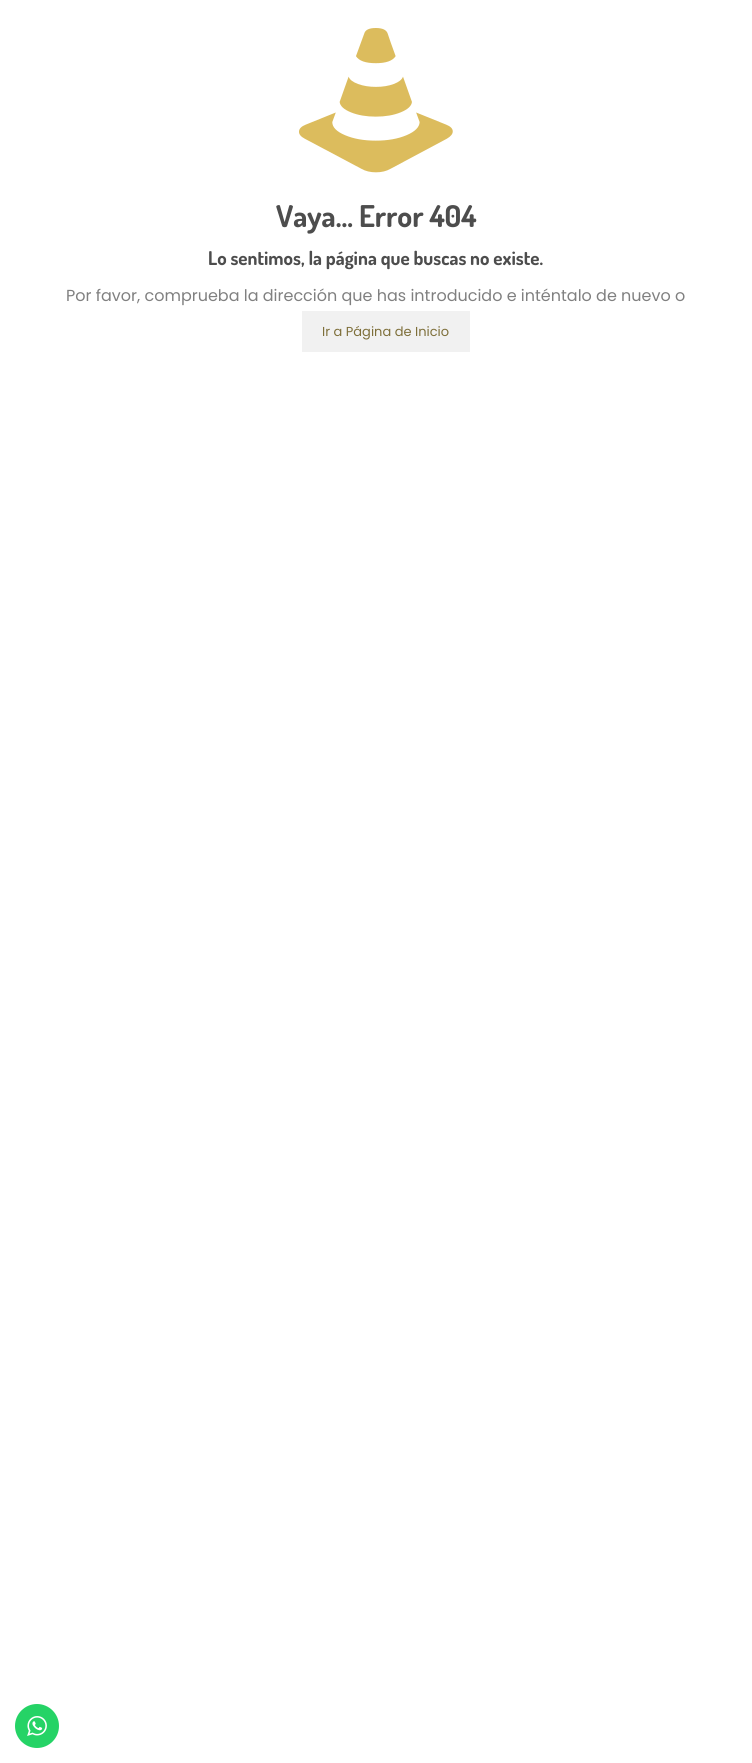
import math
import cairocffi as cairo

surface = cairo.ImageSurface(cairo.FORMAT_RGB24, 752, 1763)
ctx = cairo.Context(surface)
options = cairo.FontOptions()
options.set_hint_metrics(cairo.HINT_METRICS_OFF)
options.set_hint_style(cairo.HINT_STYLE_NONE)
ctx.set_font_options(options)
ctx.set_miter_limit(4)


def rgb(r, g, b):
    ctx.set_source_rgb(r / 255, g / 255, b / 255)


def face(family, size, italic, bold):
    ctx.select_font_face(family, cairo.FONT_SLANT_ITALIC if italic else cairo.FONT_SLANT_NORMAL, cairo.FONT_WEIGHT_BOLD if bold else cairo.FONT_WEIGHT_NORMAL)
    ctx.set_font_size(size)


def label(x, y, s):
    ctx.move_to(x, y)
    ctx.show_text(s)


def rect(x, y, w, h):
    ctx.rectangle(x, y, w, h)
    ctx.fill()


def image(path, x, y, w, h):
    ctx.save()
    ctx.set_source_surface(cairo.ImageSurface.create_from_png(path), x, y)
    ctx.rectangle(x, y, w, h)
    ctx.fill()
    ctx.restore()


rgb(255, 255, 255)
ctx.paint()
image('image0.png', 299, 28, 154, 145)
face('Dosis', 30, 0, 1)
rgb(77, 77, 77)
label(276, 227, 'Vaya… Error 404')
face('Dosis', 19, 0, 1)
label(208, 265, 'Lo sentimos, la página que buscas no existe.')
face('Poppins', 16, 0, 0)
rgb(128, 128, 128)
label(66, 301, 'Por favor, comprueba la dirección que has introducido e inténtalo de nuevo o')
rgb(241, 241, 241)
rect(302, 311, 168, 41)
face('Poppins', 13, 0, 0)
rgb(126, 111, 58)
label(322, 336, 'Ir a Página de Inicio')
rgb(37, 211, 102)
ctx.new_path()
ctx.arc(37, 1726, 22, 0, 2 * math.pi)
ctx.fill()
image('image1.png', 27, 1716, 20, 20)
surface.write_to_png('render.png')
